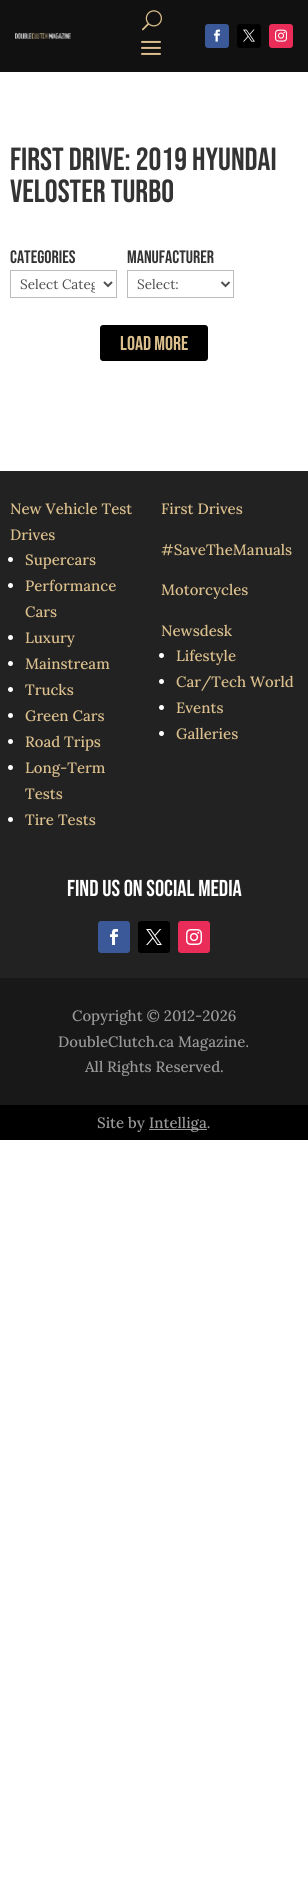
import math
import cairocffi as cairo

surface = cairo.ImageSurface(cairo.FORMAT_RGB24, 308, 1892)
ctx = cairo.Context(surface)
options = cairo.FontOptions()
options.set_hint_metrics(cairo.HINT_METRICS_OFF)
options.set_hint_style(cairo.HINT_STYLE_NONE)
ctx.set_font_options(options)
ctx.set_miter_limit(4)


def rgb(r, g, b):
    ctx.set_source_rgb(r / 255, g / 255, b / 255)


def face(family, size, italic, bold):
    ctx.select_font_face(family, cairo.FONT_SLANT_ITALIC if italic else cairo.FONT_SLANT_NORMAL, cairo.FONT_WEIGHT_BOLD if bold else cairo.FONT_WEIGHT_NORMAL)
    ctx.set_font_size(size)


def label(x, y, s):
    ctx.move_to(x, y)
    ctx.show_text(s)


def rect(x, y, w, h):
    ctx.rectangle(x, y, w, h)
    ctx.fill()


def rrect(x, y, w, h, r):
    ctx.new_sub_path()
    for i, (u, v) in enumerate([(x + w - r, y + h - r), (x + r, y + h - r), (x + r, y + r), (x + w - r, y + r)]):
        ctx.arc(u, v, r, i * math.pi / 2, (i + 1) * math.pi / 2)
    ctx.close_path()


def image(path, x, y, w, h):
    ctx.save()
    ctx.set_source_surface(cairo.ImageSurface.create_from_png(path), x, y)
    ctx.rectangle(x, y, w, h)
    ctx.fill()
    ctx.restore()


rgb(255, 255, 255)
ctx.paint()
rgb(17, 17, 17)
rect(0, 0, 308, 72)
image('image0.png', 15, 33, 56, 6)
image('image1.png', 142, 10, 20, 21)
image('image2.png', 141, 40, 20, 15)
rgb(59, 89, 152)
rrect(205, 24, 24, 24, 3)
ctx.fill()
image('image3.png', 214, 29, 6, 13)
rgb(0, 0, 0)
rrect(237, 24, 24, 24, 3)
ctx.fill()
image('image4.png', 243, 29, 12, 13)
rgb(234, 44, 89)
rrect(269, 24, 24, 24, 3)
ctx.fill()
image('image5.png', 275, 29, 12, 13)
face('Bebas Neue', 32, 0, 0)
rgb(51, 51, 51)
label(10, 170, 'First Drive: 2019 Hyundai')
label(10, 202, 'Veloster Turbo')
face('Bebas Neue', 18, 0, 0)
label(10, 263, 'Categories')
ctx.rectangle(10.5, 270.5, 106, 27)
rgb(187, 187, 187)
ctx.set_line_width(1)
ctx.stroke()
ctx.new_path()
ctx.move_to(104, 282)
ctx.line_to(108, 286)
ctx.line_to(112, 282)
rgb(78, 78, 78)
ctx.set_line_width(2)
ctx.stroke()
ctx.save()
ctx.rectangle(20, 275, 75, 19)
ctx.clip()
face('Lora', 13.5, 0, 0)
label(20, 289, 'Select Categ')
ctx.restore()
rgb(51, 51, 51)
label(127, 263, 'Manufacturer')
ctx.rectangle(127.5, 270.5, 106, 27)
rgb(187, 187, 187)
ctx.set_line_width(1)
ctx.stroke()
ctx.new_path()
ctx.move_to(221.5, 282)
ctx.line_to(225.5, 286)
ctx.line_to(229.5, 282)
rgb(78, 78, 78)
ctx.set_line_width(2)
ctx.stroke()
face('Lora', 13.5, 0, 0)
label(137, 289, 'Select:')
rgb(0, 0, 0)
rrect(100, 325, 108, 36, 3)
ctx.fill()
face('Bebas Neue', 20, 0, 0)
rgb(219, 191, 141)
label(120, 350, 'Load More')
rgb(34, 34, 34)
rect(0, 471, 308, 507)
face('Lora Medium', 15, 0, 0)
rgb(219, 191, 141)
label(10, 514, 'New Vehicle Test')
label(10, 540, 'Drives')
rgb(255, 255, 255)
ctx.new_path()
ctx.arc(10.5, 559.5, 2.5, 0, 2 * math.pi)
ctx.fill()
rgb(219, 191, 141)
label(25, 565, 'Supercars')
rgb(255, 255, 255)
ctx.new_path()
ctx.arc(10.5, 585.5, 2.5, 0, 2 * math.pi)
ctx.fill()
rgb(219, 191, 141)
label(25, 591, 'Performance')
label(25, 617, 'Cars')
rgb(255, 255, 255)
ctx.new_path()
ctx.arc(10.5, 637.5, 2.5, 0, 2 * math.pi)
ctx.fill()
rgb(219, 191, 141)
label(25, 643, 'Luxury')
rgb(255, 255, 255)
ctx.new_path()
ctx.arc(10.5, 663.5, 2.5, 0, 2 * math.pi)
ctx.fill()
rgb(219, 191, 141)
label(25, 669, 'Mainstream')
rgb(255, 255, 255)
ctx.new_path()
ctx.arc(10.5, 689.5, 2.5, 0, 2 * math.pi)
ctx.fill()
rgb(219, 191, 141)
label(25, 695, 'Trucks')
rgb(255, 255, 255)
ctx.new_path()
ctx.arc(10.5, 715.5, 2.5, 0, 2 * math.pi)
ctx.fill()
rgb(219, 191, 141)
label(25, 721, 'Green Cars')
rgb(255, 255, 255)
ctx.new_path()
ctx.arc(10.5, 741.5, 2.5, 0, 2 * math.pi)
ctx.fill()
rgb(219, 191, 141)
label(25, 747, 'Road Trips')
rgb(255, 255, 255)
ctx.new_path()
ctx.arc(10.5, 767.5, 2.5, 0, 2 * math.pi)
ctx.fill()
rgb(219, 191, 141)
label(25, 773, 'Long-Term')
label(25, 799, 'Tests')
rgb(255, 255, 255)
ctx.new_path()
ctx.arc(10.5, 819.5, 2.5, 0, 2 * math.pi)
ctx.fill()
rgb(219, 191, 141)
label(25, 825, 'Tire Tests')
label(161, 514, 'First Drives')
label(161, 555, '#SaveTheManuals')
label(161, 595, 'Motorcycles')
label(161, 636, 'Newsdesk')
rgb(255, 255, 255)
ctx.new_path()
ctx.arc(161.5, 655.5, 2.5, 0, 2 * math.pi)
ctx.fill()
rgb(219, 191, 141)
label(176, 661, 'Lifestyle')
rgb(255, 255, 255)
ctx.new_path()
ctx.arc(161.5, 681.5, 2.5, 0, 2 * math.pi)
ctx.fill()
rgb(219, 191, 141)
label(176, 687, 'Car/Tech World')
rgb(255, 255, 255)
ctx.new_path()
ctx.arc(161.5, 707.5, 2.5, 0, 2 * math.pi)
ctx.fill()
rgb(219, 191, 141)
label(176, 713, 'Events')
rgb(255, 255, 255)
ctx.new_path()
ctx.arc(161.5, 733.5, 2.5, 0, 2 * math.pi)
ctx.fill()
rgb(219, 191, 141)
label(176, 739, 'Galleries')
face('Bebas Neue', 23, 0, 0)
rgb(255, 255, 255)
label(67, 896, 'Find Us on Social Media')
rgb(59, 89, 152)
rrect(98, 921, 32, 32, 3)
ctx.fill()
image('image6.png', 110, 929, 8, 16)
rgb(0, 0, 0)
rrect(138, 921, 32, 32, 3)
ctx.fill()
image('image7.png', 146, 929, 16, 16)
rgb(234, 44, 89)
rrect(178, 921, 32, 32, 3)
ctx.fill()
image('image8.png', 186, 929, 16, 16)
rgb(24, 24, 24)
rect(0, 978, 308, 127)
face('Lora Medium', 15, 0, 0)
rgb(153, 153, 153)
label(72, 1021, 'Copyright © 2012-2026')
label(58, 1047, 'DoubleClutch.ca Magazine.')
label(85, 1072, 'All Rights Reserved.')
rgb(0, 0, 0)
rect(0, 1105, 308, 35)
rgb(153, 153, 153)
label(97, 1128, 'Site by')
rect(149, 1129, 58, 1)
label(149, 1128, 'Intelliga.')
surface.write_to_png('render.png')
